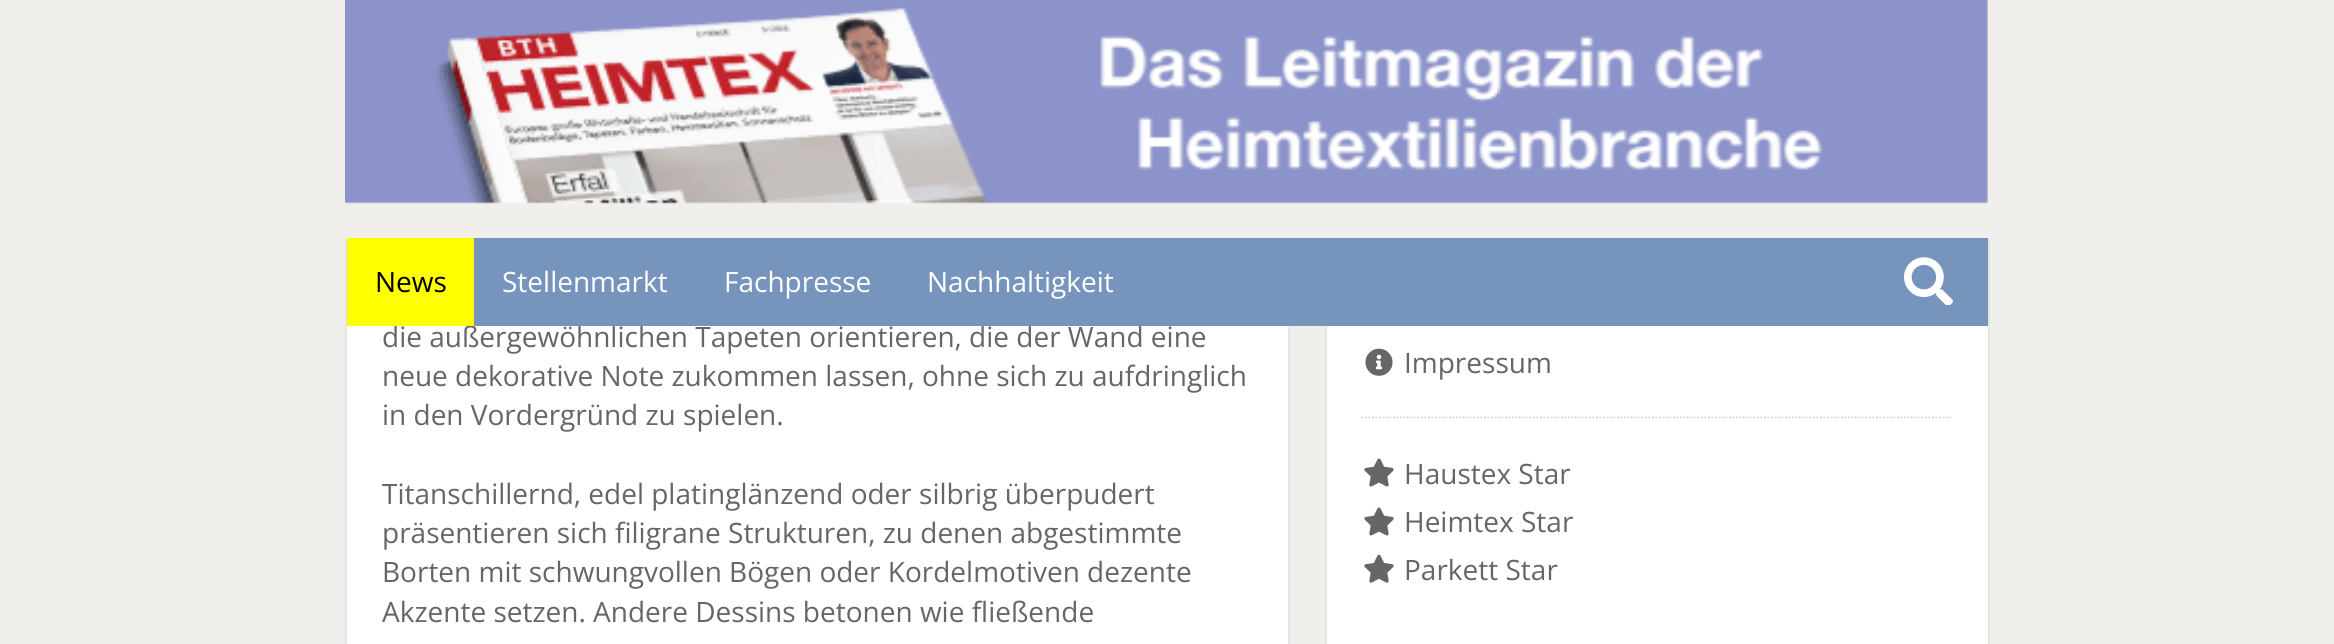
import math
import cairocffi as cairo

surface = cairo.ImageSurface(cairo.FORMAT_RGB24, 2334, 644)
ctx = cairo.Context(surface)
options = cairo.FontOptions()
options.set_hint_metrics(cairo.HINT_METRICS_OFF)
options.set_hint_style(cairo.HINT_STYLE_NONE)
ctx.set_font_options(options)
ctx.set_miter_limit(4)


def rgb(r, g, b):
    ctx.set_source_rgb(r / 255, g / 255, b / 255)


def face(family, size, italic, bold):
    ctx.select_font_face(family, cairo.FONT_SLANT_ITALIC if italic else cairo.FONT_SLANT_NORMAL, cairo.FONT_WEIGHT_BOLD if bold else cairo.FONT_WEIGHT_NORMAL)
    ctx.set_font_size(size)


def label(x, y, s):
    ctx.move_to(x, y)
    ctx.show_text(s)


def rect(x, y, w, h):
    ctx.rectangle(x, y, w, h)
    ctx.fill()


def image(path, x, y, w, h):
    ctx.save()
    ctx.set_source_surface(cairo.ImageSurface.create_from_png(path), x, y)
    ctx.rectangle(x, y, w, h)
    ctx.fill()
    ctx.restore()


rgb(241, 239, 236)
ctx.paint()
rgb(255, 255, 255)
rect(347, 326, 941, 318)
ctx.rectangle(346, -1, 943, 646)
rgb(229, 229, 229)
ctx.stroke()
rgb(255, 255, 255)
rect(1327, 326, 661, 318)
ctx.rectangle(1326, -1, 663, 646)
rgb(229, 229, 229)
ctx.stroke()
rgb(241, 239, 236)
rect(345, 0, 1645, 238)
image('image0.png', 345, 0, 1643, 204)
face('Open Sans', 28, 0, 0)
rgb(102, 102, 102)
label(382, 347, 'die außergewöhnlichen Tapeten orientieren, die der Wand eine')
rgb(118, 148, 188)
rect(474, 238, 1514, 88)
rgb(255, 255, 0)
rect(347, 238, 127, 88)
rgb(0, 0, 0)
label(375, 292, 'News')
rgb(255, 255, 255)
label(502, 292, 'Stellenmarkt')
label(724, 292, 'Fachpresse')
label(927, 292, 'Nachhaltigkeit')
image('image1.png', 1904, 257, 49, 48)
rgb(102, 102, 102)
label(382, 386, 'neue dekorative Note zukommen lassen, ohne sich zu aufdringlich')
label(382, 425, 'in den Vordergründ zu spielen.')
label(382, 504, 'Titanschillernd, edel platinglänzend oder silbrig überpudert')
label(382, 543, 'präsentieren sich filigrane Strukturen, zu denen abgestimmte')
label(382, 582, 'Borten mit schwungvollen Bögen oder Kordelmotiven dezente')
label(382, 622, 'Akzente setzen. Andere Dessins betonen wie fließende')
image('image2.png', 1365, 348, 28, 28)
label(1404, 373, 'Impressum')
ctx.new_path()
ctx.move_to(1361.5, 417.5)
ctx.line_to(1953, 417.5)
rgb(211, 211, 211)
ctx.set_line_width(1.8)
ctx.set_dash([1.75, 1.75])
ctx.stroke()
image('image3.png', 1364, 458, 30, 29)
rgb(102, 102, 102)
label(1404, 484, 'Haustex Star')
image('image3.png', 1364, 507, 30, 29)
label(1404, 532, 'Heimtex Star')
image('image4.png', 1364, 554, 30, 29)
label(1404, 580, 'Parkett Star')
surface.write_to_png('render.png')
